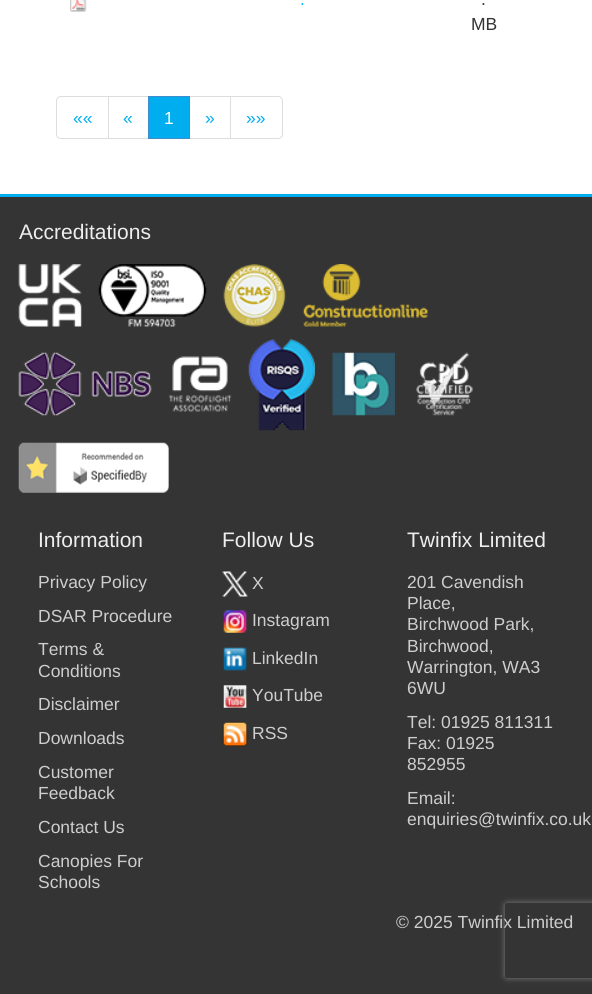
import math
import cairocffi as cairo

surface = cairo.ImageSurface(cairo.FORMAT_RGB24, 592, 994)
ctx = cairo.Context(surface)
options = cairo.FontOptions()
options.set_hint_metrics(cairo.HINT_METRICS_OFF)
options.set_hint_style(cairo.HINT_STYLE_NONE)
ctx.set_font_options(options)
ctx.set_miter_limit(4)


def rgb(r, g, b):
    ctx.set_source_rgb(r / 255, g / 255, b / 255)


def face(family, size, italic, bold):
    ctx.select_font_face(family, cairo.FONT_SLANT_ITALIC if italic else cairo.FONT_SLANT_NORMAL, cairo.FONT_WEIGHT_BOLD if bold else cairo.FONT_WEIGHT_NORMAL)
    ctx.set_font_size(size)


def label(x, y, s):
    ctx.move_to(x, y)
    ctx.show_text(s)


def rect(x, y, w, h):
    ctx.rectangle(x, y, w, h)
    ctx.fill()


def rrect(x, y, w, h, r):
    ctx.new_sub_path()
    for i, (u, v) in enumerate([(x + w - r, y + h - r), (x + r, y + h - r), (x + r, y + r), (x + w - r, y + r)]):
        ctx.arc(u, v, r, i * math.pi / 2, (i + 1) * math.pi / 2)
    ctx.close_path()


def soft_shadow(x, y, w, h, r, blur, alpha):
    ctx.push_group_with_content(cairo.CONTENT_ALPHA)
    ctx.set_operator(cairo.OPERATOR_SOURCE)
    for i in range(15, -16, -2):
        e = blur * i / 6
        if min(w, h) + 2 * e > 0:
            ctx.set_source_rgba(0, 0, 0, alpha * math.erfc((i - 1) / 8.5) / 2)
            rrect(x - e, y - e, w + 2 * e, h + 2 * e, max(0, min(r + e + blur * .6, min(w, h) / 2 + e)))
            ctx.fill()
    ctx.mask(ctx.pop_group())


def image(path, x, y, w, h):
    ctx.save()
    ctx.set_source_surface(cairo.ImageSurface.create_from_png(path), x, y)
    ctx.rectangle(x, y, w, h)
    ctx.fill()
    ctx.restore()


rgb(52, 52, 52)
ctx.paint()
rgb(255, 255, 255)
rect(0, 0, 592, 194)
image('image0.png', 70, 0, 17, 12)
face('Liberation Sans', 17.5, 0, 0)
rgb(0, 174, 239)
label(300, 5, '.')
rgb(51, 51, 51)
label(481, 5, '.')
label(471, 30, 'MB')
ctx.new_path()
ctx.move_to(61, 96.5)
ctx.line_to(108.5, 96.5)
ctx.line_to(108.5, 138.5)
ctx.line_to(61, 138.5)
ctx.curve_to(58.5, 138.5, 56.5, 136.5, 56.5, 134)
ctx.line_to(56.5, 101)
ctx.curve_to(56.5, 98.5, 58.5, 96.5, 61, 96.5)
ctx.close_path()
rgb(221, 221, 221)
ctx.set_line_width(1)
ctx.stroke()
rgb(0, 174, 239)
label(73, 124, '««')
ctx.rectangle(108.5, 96.5, 40, 42)
rgb(221, 221, 221)
ctx.stroke()
rgb(0, 174, 239)
label(123, 124, '«')
ctx.rectangle(189.5, 96.5, 41, 42)
rgb(221, 221, 221)
ctx.stroke()
rgb(0, 174, 239)
ctx.rectangle(148.5, 96.5, 41, 42)
ctx.fill_preserve()
rgb(66, 139, 202)
ctx.stroke()
rgb(255, 255, 255)
label(164, 124, '1')
rgb(0, 174, 239)
label(205, 124, '»')
rgb(255, 255, 255)
ctx.new_path()
ctx.move_to(230.5, 96.5)
ctx.line_to(278, 96.5)
ctx.curve_to(280.5, 96.5, 282.5, 98.5, 282.5, 101)
ctx.line_to(282.5, 134)
ctx.curve_to(282.5, 136.5, 280.5, 138.5, 278, 138.5)
ctx.line_to(230.5, 138.5)
ctx.close_path()
ctx.fill_preserve()
rgb(221, 221, 221)
ctx.stroke()
rgb(0, 174, 239)
label(246, 124, '»»')
rect(0, 194, 592, 3)
face('Liberation Sans', 21, 0, 0)
rgb(238, 238, 238)
label(19, 239, 'Accreditations')
image('image1.png', 18, 264, 64, 63)
image('image2.png', 98, 264, 109, 63)
image('image3.png', 223, 264, 63, 63)
image('image4.png', 303, 264, 125, 63)
image('image5.png', 18, 352, 134, 64)
image('image6.png', 168, 356, 64, 56)
image('image7.png', 248, 339, 67, 92)
image('image8.png', 332, 352, 63, 64)
image('image9.png', 416, 352, 57, 64)
image('image10.png', 18, 442, 151, 51)
label(38, 547, 'Information')
face('Liberation Sans', 17.5, 0, 0)
rgb(206, 206, 206)
label(38, 588, 'Privacy Policy')
label(38, 622, 'DSAR Procedure')
label(38, 655, 'Terms &')
label(38, 677, 'Conditions')
label(38, 710, 'Disclaimer')
label(38, 744, 'Downloads')
label(38, 778, 'Customer')
label(38, 799, 'Feedback')
label(38, 833, 'Contact Us')
label(38, 867, 'Canopies For')
label(38, 888, 'Schools')
face('Liberation Sans', 21, 0, 0)
rgb(238, 238, 238)
label(222, 547, 'Follow Us')
image('image11.png', 222, 571, 26, 26)
face('Liberation Sans', 17.5, 0, 0)
rgb(206, 206, 206)
label(252, 589, 'X')
image('image12.png', 223, 610, 24, 23)
label(252, 626, 'Instagram')
image('image13.png', 223, 647, 24, 24)
label(252, 664, 'LinkedIn')
image('image14.png', 223, 685, 24, 23)
label(252, 701, 'YouTube')
image('image15.png', 222, 721, 26, 26)
label(252, 739, 'RSS')
face('Liberation Sans', 21, 0, 0)
rgb(238, 238, 238)
label(407, 547, 'Twinfix Limited')
face('Liberation Sans', 17.5, 0, 0)
rgb(206, 206, 206)
label(407, 588, '201 Cavendish')
label(407, 609, 'Place,')
label(407, 630, 'Birchwood Park,')
label(407, 652, 'Birchwood,')
label(407, 673, 'Warrington, WA3')
label(407, 694, '6WU')
label(407, 728, 'Tel: 01925 811311')
label(407, 749, 'Fax: 01925')
label(407, 770, '852955')
label(407, 804, 'Email:')
label(407, 825, 'enquiries@twinfix.co.uk')
label(396, 928, '© 2025 Twinfix Limited')
ctx.save()
ctx.set_fill_rule(cairo.FILL_RULE_EVEN_ODD)
ctx.new_path()
ctx.move_to(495, 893)
ctx.line_to(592, 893)
ctx.line_to(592, 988)
ctx.line_to(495, 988)
ctx.close_path()
ctx.move_to(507.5, 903)
ctx.line_to(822.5, 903)
ctx.curve_to(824, 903, 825, 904, 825, 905.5)
ctx.line_to(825, 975.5)
ctx.curve_to(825, 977, 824, 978, 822.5, 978)
ctx.line_to(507.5, 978)
ctx.curve_to(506, 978, 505, 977, 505, 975.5)
ctx.line_to(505, 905.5)
ctx.curve_to(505, 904, 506, 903, 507.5, 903)
ctx.close_path()
ctx.clip()
rgb(128, 128, 128)
soft_shadow(505, 903, 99, 75, 2.5, 3, 1)
ctx.restore()
surface.write_to_png('render.png')
